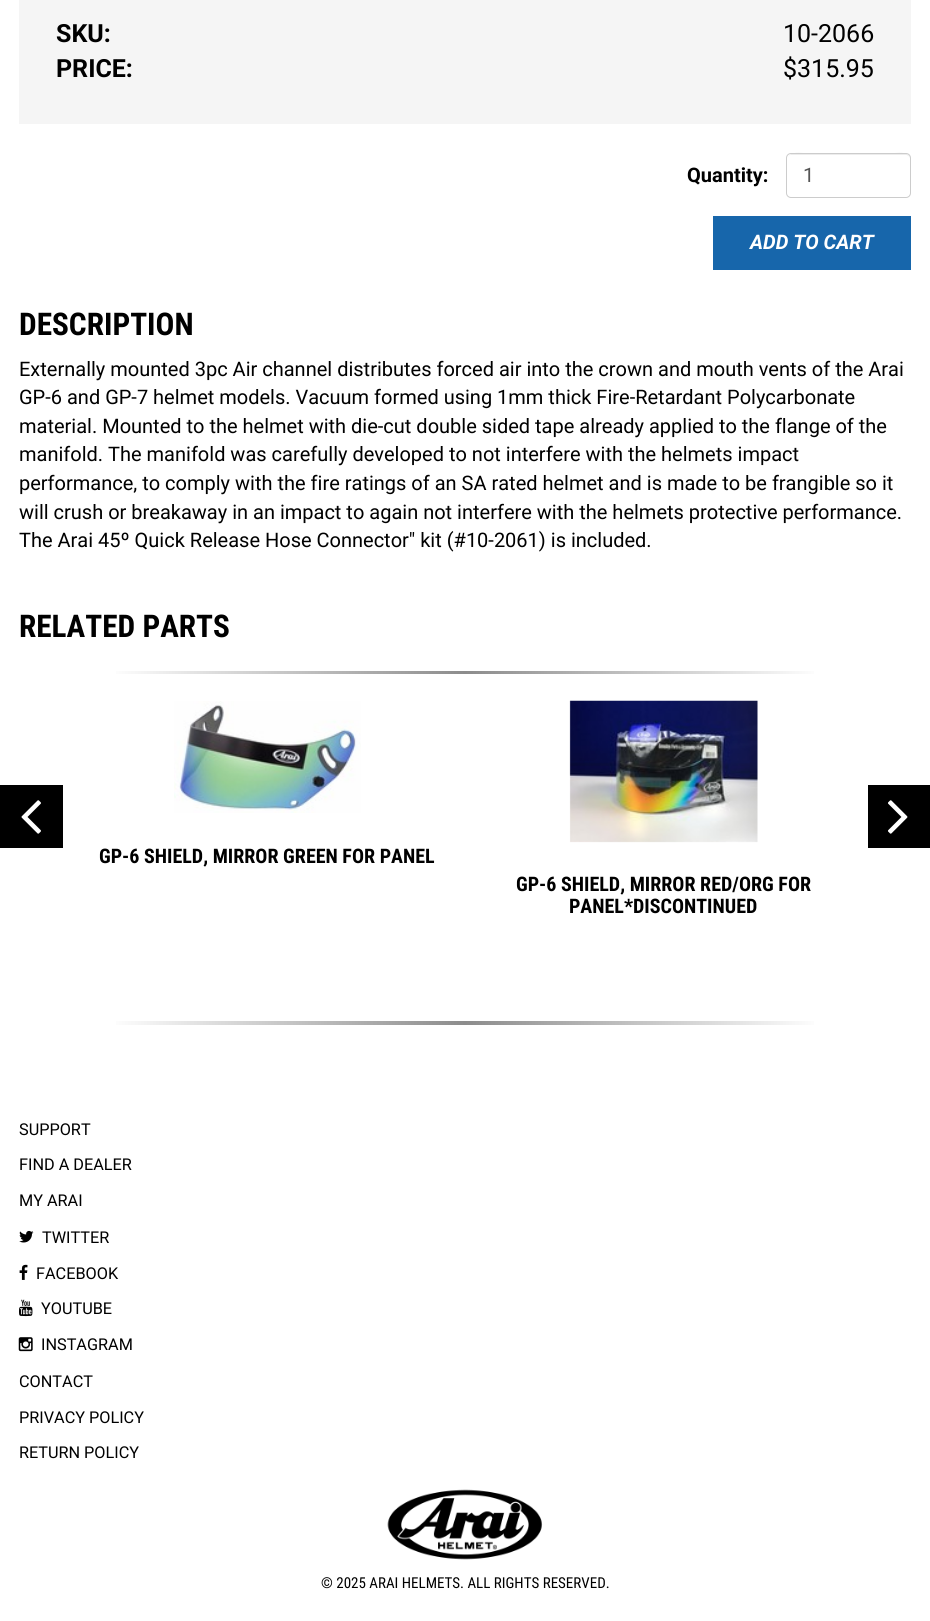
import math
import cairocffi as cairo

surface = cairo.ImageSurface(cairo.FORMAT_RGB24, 930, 1621)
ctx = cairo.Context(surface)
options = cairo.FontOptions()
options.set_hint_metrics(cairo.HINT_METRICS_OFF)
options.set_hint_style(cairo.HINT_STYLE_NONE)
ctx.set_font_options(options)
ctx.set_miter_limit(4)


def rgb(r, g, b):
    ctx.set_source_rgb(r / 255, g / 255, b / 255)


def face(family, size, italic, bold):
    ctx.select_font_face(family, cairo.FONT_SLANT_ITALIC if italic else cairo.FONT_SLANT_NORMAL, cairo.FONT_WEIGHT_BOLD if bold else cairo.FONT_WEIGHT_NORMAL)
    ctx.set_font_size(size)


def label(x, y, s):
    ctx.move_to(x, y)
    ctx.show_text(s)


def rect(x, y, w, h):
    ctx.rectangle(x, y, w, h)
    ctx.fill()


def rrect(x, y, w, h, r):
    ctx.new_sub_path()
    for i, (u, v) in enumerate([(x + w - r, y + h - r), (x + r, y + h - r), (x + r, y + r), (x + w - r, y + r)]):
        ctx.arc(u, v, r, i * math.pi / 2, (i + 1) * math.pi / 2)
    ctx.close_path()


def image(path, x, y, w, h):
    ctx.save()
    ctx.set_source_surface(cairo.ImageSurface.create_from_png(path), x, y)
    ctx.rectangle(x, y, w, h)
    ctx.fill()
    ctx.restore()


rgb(255, 255, 255)
ctx.paint()
rgb(245, 245, 245)
rect(19, 0, 892, 124)
face('Roboto', 25, 0, 1)
rgb(0, 0, 0)
label(56, 42, 'SKU:')
face('Roboto', 25, 0, 0)
label(783, 42, '10-2066')
face('Roboto', 25, 0, 1)
label(56, 77, 'PRICE:')
face('Roboto', 25, 0, 0)
label(783, 77, '$315.95')
face('Roboto', 20, 0, 1)
label(687, 182, 'Quantity:')
rgb(236, 236, 236)
ctx.new_path()
ctx.move_to(791, 155)
ctx.line_to(906, 155)
ctx.curve_to(908, 155, 910, 157, 910, 159)
ctx.curve_to(910, 149, 890, 154, 887, 154)
ctx.line_to(811, 154)
ctx.curve_to(808, 154, 788, 149, 788, 159)
ctx.curve_to(788, 157, 789, 155, 791, 155)
ctx.close_path()
ctx.fill()
rrect(786.5, 153.5, 124, 44, 4.5)
rgb(204, 204, 204)
ctx.set_line_width(1)
ctx.stroke()
face('Roboto', 20, 0, 0)
rgb(85, 85, 85)
label(803, 182, '1')
rgb(23, 102, 171)
rect(713, 216, 198, 54)
face('Roboto', 20, 1, 1)
rgb(255, 255, 255)
label(750, 249, 'ADD TO CART')
face('Roboto Condensed', 31.25, 0, 1)
rgb(0, 0, 0)
label(19, 335, 'DESCRIPTION')
face('Roboto', 20, 0, 0)
label(19, 376, 'Externally mounted 3pc Air channel distributes forced air into the crown and mouth vents of the Arai')
label(19, 404, 'GP-6 and GP-7 helmet models. Vacuum formed using 1mm thick Fire-Retardant Polycarbonate')
label(19, 433, 'material. Mounted to the helmet with die-cut double sided tape already applied to the flange of the')
label(19, 461, 'manifold. The manifold was carefully developed to not interfere with the helmets impact')
label(19, 490, 'performance, to comply with the fire ratings of an SA rated helmet and is made to be frangible so it')
label(19, 519, 'will crush or breakaway in an impact to again not interfere with the helmets protective performance.')
label(19, 547, 'The Arai 45º Quick Release Hose Connector" kit (#10-2061) is included.')
face('Roboto Condensed', 31.25, 0, 1)
label(19, 637, 'RELATED PARTS')
gradient = cairo.LinearGradient(19, 673, 911, 673)
gradient.add_color_stop_rgba(0, 1, 1, 1, 1)
gradient.add_color_stop_rgba(0.1, 1, 1, 1, 1)
gradient.add_color_stop_rgba(0.5, 0.549, 0.549, 0.549, 1)
gradient.add_color_stop_rgba(0.9, 1, 1, 1, 1)
gradient.add_color_stop_rgba(1, 1, 1, 1, 1)
ctx.set_source(gradient)
rect(116, 671, 698, 3)
rgb(0, 0, 0)
rect(0, 785, 63, 63)
image('image0.png', 21, 800, 20, 34)
rect(868, 785, 62, 63)
image('image1.png', 888, 800, 20, 34)
image('image2.png', 174, 701, 187, 112)
face('Roboto Condensed', 20, 0, 1)
label(99, 863, 'GP-6 SHIELD, MIRROR GREEN FOR PANEL')
image('image3.png', 569, 700, 189, 143)
label(516, 891, 'GP-6 SHIELD, MIRROR RED/ORG FOR')
label(569, 913, 'PANEL*DISCONTINUED')
gradient = cairo.LinearGradient(19, 1023, 911, 1023)
gradient.add_color_stop_rgba(0, 1, 1, 1, 1)
gradient.add_color_stop_rgba(0.1, 1, 1, 1, 1)
gradient.add_color_stop_rgba(0.5, 0.549, 0.549, 0.549, 1)
gradient.add_color_stop_rgba(0.9, 1, 1, 1, 1)
gradient.add_color_stop_rgba(1, 1, 1, 1, 1)
ctx.set_source(gradient)
rect(116, 1021, 698, 4)
face('Roboto', 16.25, 0, 0)
rgb(0, 0, 0)
label(19, 1135, 'SUPPORT')
label(19, 1170, 'FIND A DEALER')
label(19, 1206, 'MY ARAI')
image('image4.png', 19, 1230, 15, 13)
label(42, 1243, 'TWITTER')
image('image5.png', 19, 1264, 9, 16)
label(36, 1279, 'FACEBOOK')
image('image6.png', 19, 1299, 14, 18)
label(41, 1314, 'YOUTUBE')
image('image7.png', 18, 1337, 15, 15)
label(41, 1350, 'INSTAGRAM')
label(19, 1387, 'CONTACT')
label(19, 1423, 'PRIVACY POLICY')
label(19, 1458, 'RETURN POLICY')
image('image8.png', 387, 1489, 156, 71)
face('Roboto Condensed', 15, 0, 0)
label(321, 1588, '© 2025 ARAI HELMETS. ALL RIGHTS RESERVED.')
surface.write_to_png('render.png')
